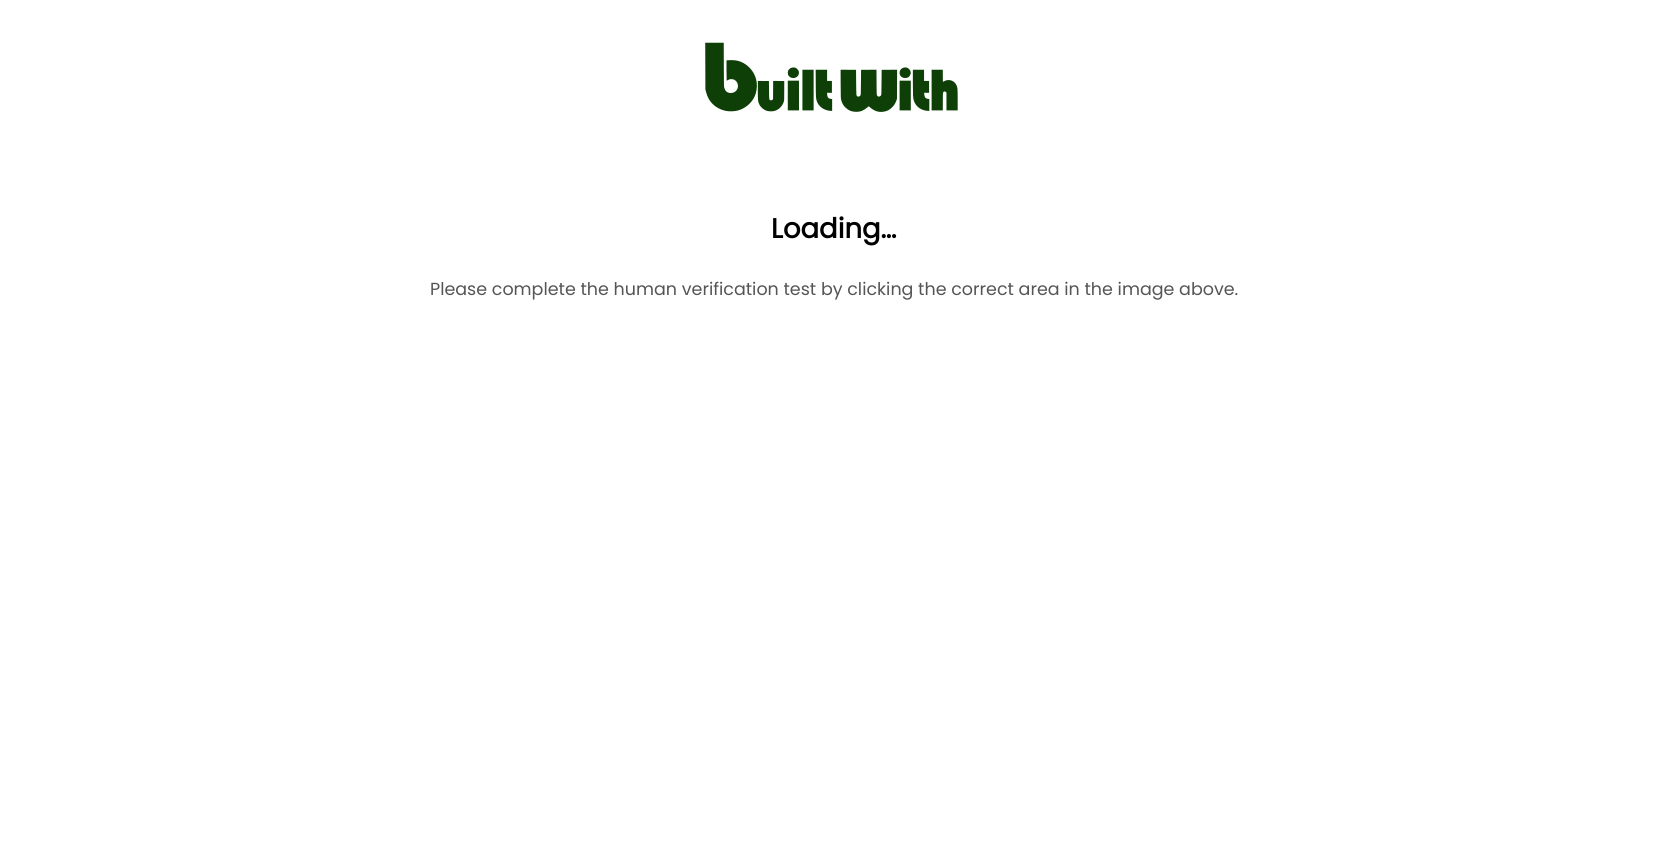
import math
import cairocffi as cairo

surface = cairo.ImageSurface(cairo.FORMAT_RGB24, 1667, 843)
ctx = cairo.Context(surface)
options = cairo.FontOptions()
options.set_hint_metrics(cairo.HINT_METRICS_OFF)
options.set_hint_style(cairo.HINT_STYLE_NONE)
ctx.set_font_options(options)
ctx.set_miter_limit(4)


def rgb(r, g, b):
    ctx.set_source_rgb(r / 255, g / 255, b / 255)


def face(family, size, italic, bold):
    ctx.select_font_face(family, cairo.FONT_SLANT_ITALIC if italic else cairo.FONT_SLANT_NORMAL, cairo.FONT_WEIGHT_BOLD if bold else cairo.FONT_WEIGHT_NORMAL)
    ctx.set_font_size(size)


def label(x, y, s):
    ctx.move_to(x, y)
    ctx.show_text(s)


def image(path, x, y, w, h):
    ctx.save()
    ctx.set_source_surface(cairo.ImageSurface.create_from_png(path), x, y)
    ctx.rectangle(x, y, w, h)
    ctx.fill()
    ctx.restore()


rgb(255, 255, 255)
ctx.paint()
image('image0.png', 705, 42, 253, 70)
face('Poppins', 27.5, 0, 1)
rgb(0, 0, 0)
label(771, 238, 'Loading…')
face('Poppins', 17.5, 0, 0)
rgb(85, 85, 85)
label(430, 295, 'Please complete the human verification test by clicking the correct area in the image above.')
surface.write_to_png('render.png')
